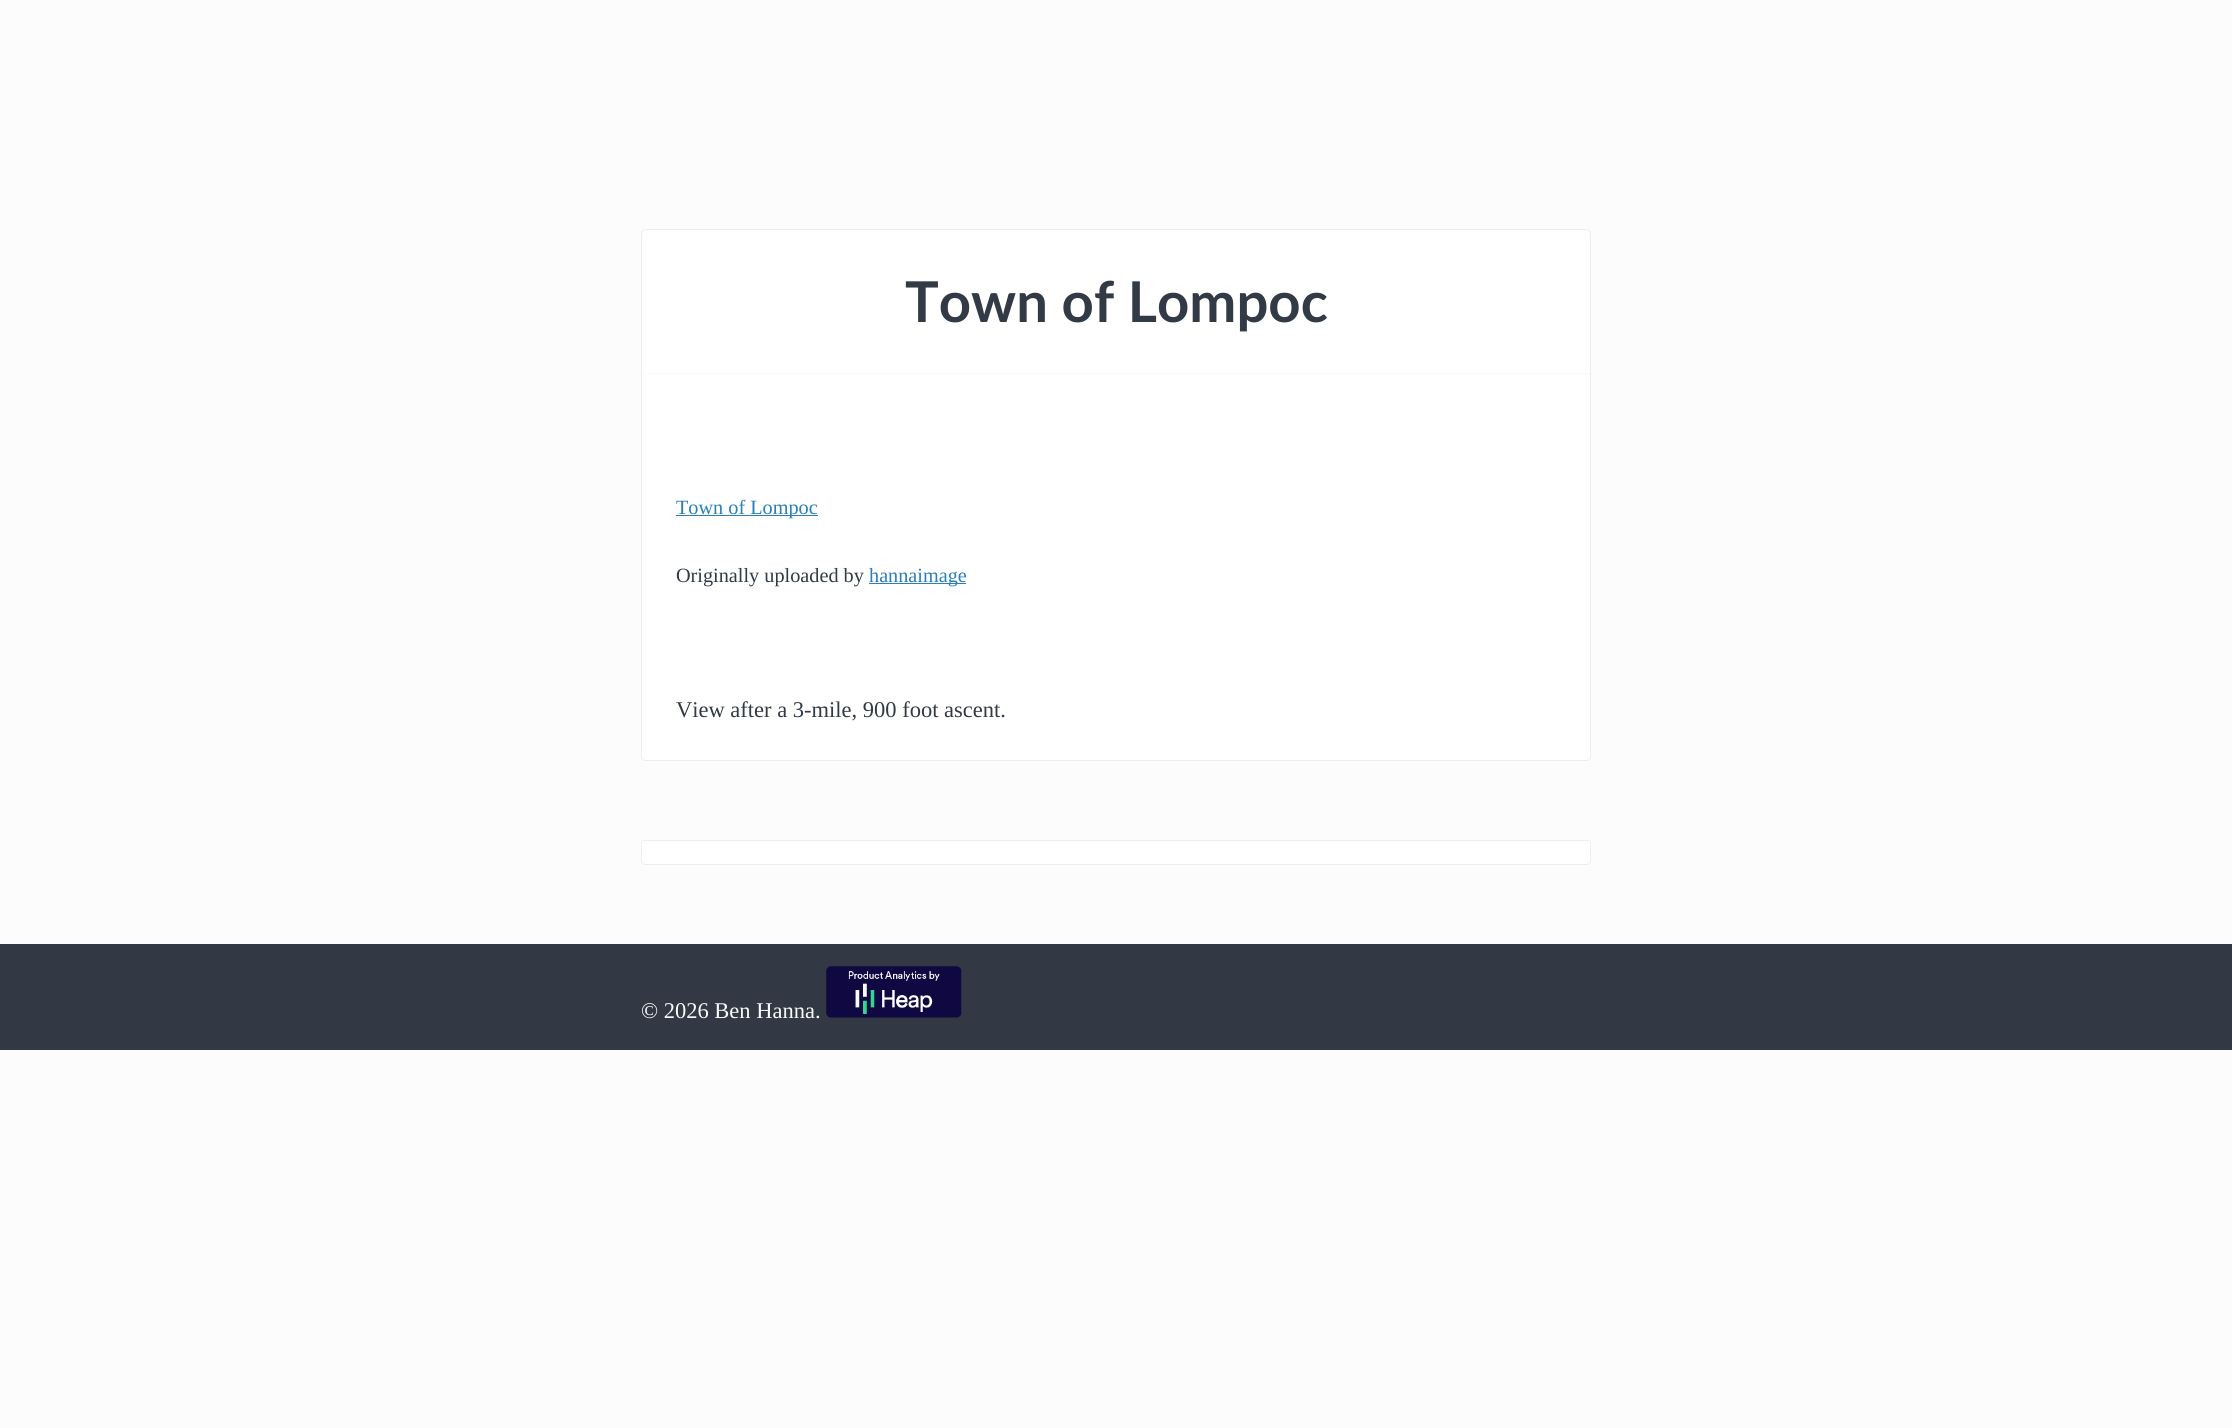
import math
import cairocffi as cairo

surface = cairo.ImageSurface(cairo.FORMAT_RGB24, 2232, 1428)
ctx = cairo.Context(surface)
options = cairo.FontOptions()
options.set_hint_metrics(cairo.HINT_METRICS_OFF)
options.set_hint_style(cairo.HINT_STYLE_NONE)
ctx.set_font_options(options)
ctx.set_miter_limit(4)


def rgb(r, g, b):
    ctx.set_source_rgb(r / 255, g / 255, b / 255)


def face(family, size, italic, bold):
    ctx.select_font_face(family, cairo.FONT_SLANT_ITALIC if italic else cairo.FONT_SLANT_NORMAL, cairo.FONT_WEIGHT_BOLD if bold else cairo.FONT_WEIGHT_NORMAL)
    ctx.set_font_size(size)


def label(x, y, s):
    ctx.move_to(x, y)
    ctx.show_text(s)


def rect(x, y, w, h):
    ctx.rectangle(x, y, w, h)
    ctx.fill()


def rrect(x, y, w, h, r):
    ctx.new_sub_path()
    for i, (u, v) in enumerate([(x + w - r, y + h - r), (x + r, y + h - r), (x + r, y + r), (x + w - r, y + r)]):
        ctx.arc(u, v, r, i * math.pi / 2, (i + 1) * math.pi / 2)
    ctx.close_path()


def image(path, x, y, w, h):
    ctx.save()
    ctx.set_source_surface(cairo.ImageSurface.create_from_png(path), x, y)
    ctx.rectangle(x, y, w, h)
    ctx.fill()
    ctx.restore()


rgb(252, 252, 252)
ctx.paint()
rgb(255, 255, 255)
rrect(641.5, 229.5, 949, 531, 3.5)
ctx.fill_preserve()
rgb(234, 237, 242)
ctx.set_line_width(1)
ctx.stroke()
rgb(248, 249, 250)
rect(643, 373, 947, 1)
face('Lato', 56.25, 0, 1)
rgb(50, 58, 69)
label(905, 322, 'Town of Lompoc')
rgb(41, 128, 185)
rect(676, 515, 142, 1)
face('Liberation Serif', 20.25, 0, 0)
label(676, 514, 'Town of Lompoc')
rgb(50, 58, 69)
label(676, 582, 'Originally uploaded by')
rgb(41, 128, 185)
rect(869, 583, 97, 1)
label(869, 582, 'hannaimage')
face('Liberation Serif', 22.5, 0, 0)
rgb(50, 58, 69)
label(676, 717, 'View after a 3-mile, 900 foot ascent.')
rgb(255, 255, 255)
rrect(641.5, 840.5, 949, 24, 3.5)
ctx.fill_preserve()
rgb(234, 237, 242)
ctx.stroke()
rgb(50, 57, 68)
rect(0, 944, 2232, 106)
rgb(248, 249, 250)
label(641, 1018, '© 2026 Ben Hanna.')
image('image0.png', 826, 966, 136, 52)
surface.write_to_png('render.png')
